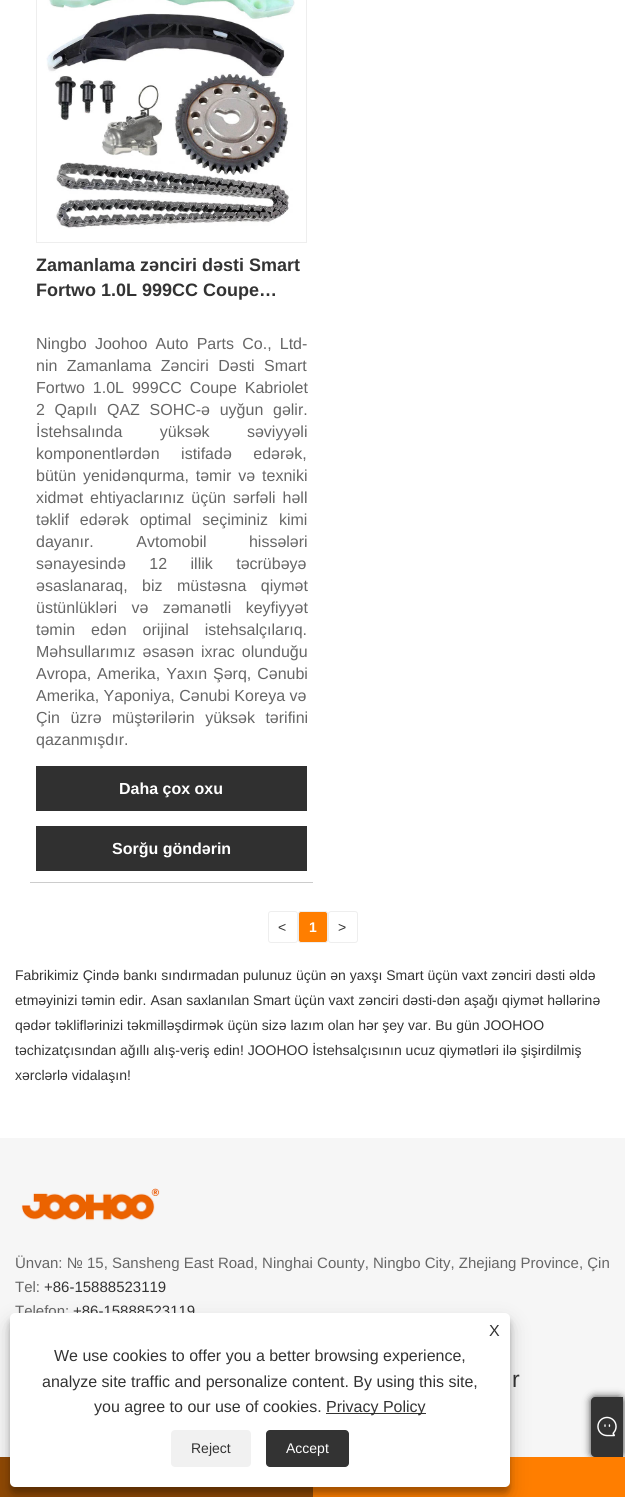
import math
import cairocffi as cairo

surface = cairo.ImageSurface(cairo.FORMAT_RGB24, 625, 1497)
ctx = cairo.Context(surface)
options = cairo.FontOptions()
options.set_hint_metrics(cairo.HINT_METRICS_OFF)
options.set_hint_style(cairo.HINT_STYLE_NONE)
ctx.set_font_options(options)
ctx.set_miter_limit(4)


def rgb(r, g, b):
    ctx.set_source_rgb(r / 255, g / 255, b / 255)


def face(family, size, italic, bold):
    ctx.select_font_face(family, cairo.FONT_SLANT_ITALIC if italic else cairo.FONT_SLANT_NORMAL, cairo.FONT_WEIGHT_BOLD if bold else cairo.FONT_WEIGHT_NORMAL)
    ctx.set_font_size(size)


def label(x, y, s):
    ctx.move_to(x, y)
    ctx.show_text(s)


def tracked(x, y, s, letter, word):
    ctx.move_to(x, y)
    for ch in s:
        ctx.show_text(ch)
        ctx.rel_move_to(letter + word * (ch == ' '), 0)


def rect(x, y, w, h):
    ctx.rectangle(x, y, w, h)
    ctx.fill()


def rrect(x, y, w, h, r):
    ctx.new_sub_path()
    for i, (u, v) in enumerate([(x + w - r, y + h - r), (x + r, y + h - r), (x + r, y + r), (x + w - r, y + r)]):
        ctx.arc(u, v, r, i * math.pi / 2, (i + 1) * math.pi / 2)
    ctx.close_path()


def soft_shadow(x, y, w, h, r, blur, alpha):
    ctx.push_group_with_content(cairo.CONTENT_ALPHA)
    ctx.set_operator(cairo.OPERATOR_SOURCE)
    for i in range(15, -16, -2):
        e = blur * i / 6
        if min(w, h) + 2 * e > 0:
            ctx.set_source_rgba(0, 0, 0, alpha * math.erfc((i - 1) / 8.5) / 2)
            rrect(x - e, y - e, w + 2 * e, h + 2 * e, max(0, min(r + e + blur * .6, min(w, h) / 2 + e)))
            ctx.fill()
    ctx.mask(ctx.pop_group())


def image(path, x, y, w, h):
    ctx.save()
    ctx.set_source_surface(cairo.ImageSurface.create_from_png(path), x, y)
    ctx.rectangle(x, y, w, h)
    ctx.fill()
    ctx.restore()


rgb(255, 255, 255)
ctx.paint()
rgb(204, 204, 204)
rect(30, 882, 283, 1)
ctx.rectangle(36.5, -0.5, 270, 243)
rgb(238, 238, 238)
ctx.set_line_width(1)
ctx.stroke()
image('image0.png', 46, 0, 249, 229)
face('Liberation Sans', 18, 0, 1)
rgb(51, 51, 51)
label(36, 271, 'Zamanlama zənciri dəsti Smart')
label(36, 296, 'Fortwo 1.0L 999CC Coupe…')
face('Liberation Sans', 16, 0, 0)
rgb(102, 102, 102)
tracked(36, 349, 'Ningbo Joohoo Auto Parts Co., Ltd-', 0, 3.75)
tracked(36, 371, 'nin Zamanlama Zənciri Dəsti Smart', 0, 5)
tracked(36, 393, 'Fortwo 1.0L 999CC Coupe Kabriolet', 0, 3.5)
tracked(36, 415, '2 Qapılı QAZ SOHC-ə uyğun gəlir.', 0, 5.25)
tracked(36, 437, 'İstehsalında yüksək səviyyəli', 0, 33)
tracked(36, 459, 'komponentlərdən istifadə edərək,', 0, 17)
tracked(36, 481, 'bütün yenidənqurma, təmir və texniki', 0, 2.5)
tracked(36, 503, 'xidmət ehtiyaclarınız üçün sərfəli həll', 0, 2.5)
tracked(36, 525, 'təklif edərək optimal seçiminiz kimi', 0, 6.5)
tracked(36, 547, 'dayanır. Avtomobil hissələri', 0, 38)
tracked(36, 569, 'sənayesində 12 illik təcrübəyə', 0, 19)
tracked(36, 591, 'əsaslanaraq, biz müstəsna qiymət', 0, 10)
tracked(36, 613, 'üstünlükləri və zəmanətli keyfiyyət', 0, 10)
tracked(36, 635, 'təmin edən orijinal istehsalçılarıq.', 0, 11.5)
tracked(36, 657, 'Məhsullarımız əsasən ixrac olunduğu', 0, 2.5)
tracked(36, 679, 'Avropa, Amerika, Yaxın Şərq, Cənubi', 0, 1.5)
label(36, 701, 'Amerika, Yaponiya, Cənubi Koreya və')
tracked(36, 723, 'Çin üzrə müştərilərin yüksək tərifini', 0, 6)
label(36, 745, 'qazanmışdır.')
rgb(48, 48, 48)
rect(36, 766, 271, 45)
face('Liberation Sans', 16, 0, 1)
rgb(255, 255, 255)
label(119, 794, 'Daha çox oxu')
rgb(48, 48, 48)
rect(36, 826, 271, 45)
rgb(255, 255, 255)
label(112, 854, 'Sorğu göndərin')
rrect(268.5, 911.5, 29, 31, 2.5)
rgb(238, 238, 238)
ctx.stroke()
face('Liberation Sans', 14, 0, 0)
rgb(51, 51, 51)
label(278, 932, '<')
rgb(255, 126, 0)
rrect(298.5, 911.5, 29, 31, 2.5)
ctx.fill_preserve()
rgb(238, 238, 238)
ctx.stroke()
face('Liberation Sans', 14, 0, 1)
rgb(255, 255, 255)
label(309, 932, '1')
rrect(328.5, 911.5, 29, 31, 2.5)
rgb(238, 238, 238)
ctx.stroke()
face('Liberation Sans', 14, 0, 0)
rgb(51, 51, 51)
label(338, 932, '>')
label(15, 980, 'Fabrikimiz Çində bankı sındırmadan pulunuz üçün ən yaxşı Smart üçün vaxt zənciri dəsti əldə')
label(15, 1005, 'etməyinizi təmin edir. Asan saxlanılan Smart üçün vaxt zənciri dəsti-dən aşağı qiymət həllərinə')
label(15, 1030, 'qədər təkliflərinizi təkmilləşdirmək üçün sizə lazım olan hər şey var. Bu gün JOOHOO')
label(15, 1055, 'təchizatçısından ağıllı alış-veriş edin! JOOHOO İstehsalçısının ucuz qiymətləri ilə şişirdilmiş')
label(15, 1080, 'xərclərlə vidalaşın!')
rgb(246, 246, 246)
rect(0, 1138, 625, 319)
image('image1.png', 21, 1188, 139, 33)
face('Liberation Sans', 15, 0, 0)
rgb(102, 102, 102)
label(15, 1268, 'Ünvan: № 15, Sansheng East Road, Ninghai County, Ningbo City, Zhejiang Province, Çin')
label(15, 1292, 'Tel:')
rgb(51, 51, 51)
label(44, 1292, '+86-15888523119')
rgb(102, 102, 102)
label(15, 1316, 'Telefon:')
rgb(51, 51, 51)
label(73, 1316, '+86-15888523119')
face('Liberation Sans', 23, 0, 0)
label(512, 1387, 'r')
rgb(144, 73, 4)
rect(0, 1457, 313, 40)
rgb(51, 51, 51)
soft_shadow(591, 1397, 32, 60, 4, 4, 1)
rgb(255, 126, 0)
rect(313, 1457, 312, 40)
rgb(0, 0, 0)
soft_shadow(10, 1319, 500, 174, 5, 3, 0.23)
soft_shadow(10, 1323, 500, 174, 5, 10, 0.19)
rgb(255, 255, 255)
rrect(10, 1313, 500, 174, 5)
ctx.fill()
face('Liberation Sans', 16, 0, 0)
rgb(51, 51, 51)
label(489, 1336, 'X')
label(54, 1361, 'We use cookies to offer you a better browsing experience,')
label(42, 1387, 'analyze site traffic and personalize content. By using this site,')
label(94, 1412, 'you agree to our use of cookies.')
rect(326, 1413, 100, 1)
label(326, 1412, 'Privacy Policy')
rgb(241, 241, 241)
rrect(171, 1430, 80, 37, 4)
ctx.fill()
face('Liberation Sans', 14, 0, 0)
rgb(51, 51, 51)
label(191, 1453, 'Reject')
rrect(266, 1430, 83, 37, 4)
ctx.fill()
rgb(255, 255, 255)
label(286, 1453, 'Accept')
rgb(51, 51, 51)
ctx.new_path()
ctx.move_to(595, 1397)
ctx.line_to(623, 1397)
ctx.line_to(623, 1457)
ctx.line_to(595, 1457)
ctx.curve_to(593, 1457, 591, 1455, 591, 1453)
ctx.line_to(591, 1401)
ctx.curve_to(591, 1399, 593, 1397, 595, 1397)
ctx.close_path()
ctx.fill()
image('image2.png', 597, 1416, 20, 21)
surface.write_to_png('render.png')
